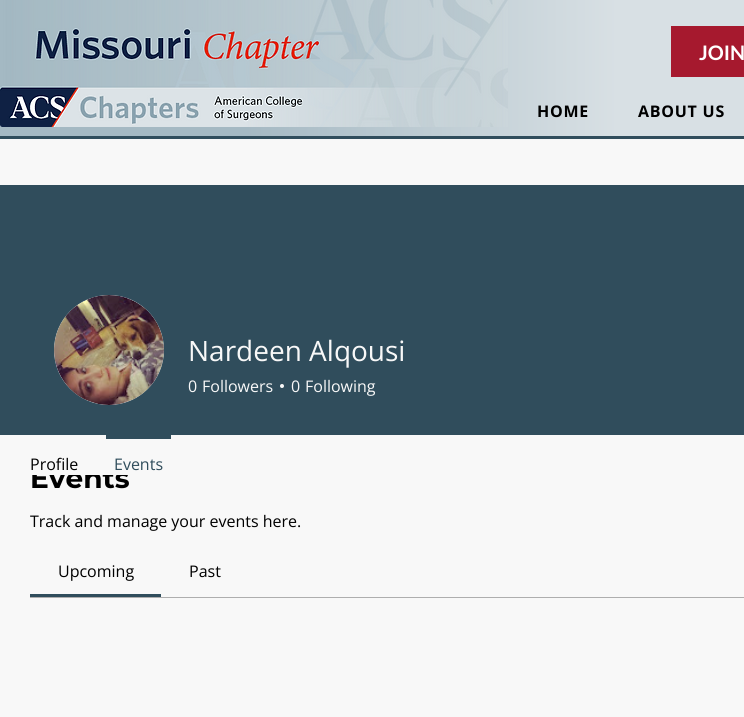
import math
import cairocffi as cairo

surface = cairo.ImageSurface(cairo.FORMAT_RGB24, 744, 717)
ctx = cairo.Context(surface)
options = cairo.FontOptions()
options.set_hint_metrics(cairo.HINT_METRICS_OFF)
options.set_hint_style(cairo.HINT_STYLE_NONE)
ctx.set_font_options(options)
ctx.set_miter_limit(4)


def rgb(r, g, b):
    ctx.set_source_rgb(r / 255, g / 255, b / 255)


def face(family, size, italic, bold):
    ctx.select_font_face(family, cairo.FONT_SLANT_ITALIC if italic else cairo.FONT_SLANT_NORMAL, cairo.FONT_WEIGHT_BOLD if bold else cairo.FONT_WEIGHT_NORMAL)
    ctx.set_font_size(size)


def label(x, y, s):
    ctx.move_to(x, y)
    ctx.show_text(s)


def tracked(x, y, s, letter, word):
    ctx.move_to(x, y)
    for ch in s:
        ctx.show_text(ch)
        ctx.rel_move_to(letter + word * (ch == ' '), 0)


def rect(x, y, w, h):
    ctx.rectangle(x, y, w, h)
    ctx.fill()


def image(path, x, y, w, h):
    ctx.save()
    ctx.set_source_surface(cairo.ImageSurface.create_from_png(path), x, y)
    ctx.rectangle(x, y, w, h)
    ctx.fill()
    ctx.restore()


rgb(248, 248, 248)
ctx.paint()
rgb(48, 77, 92)
rect(0, 136, 744, 3)
gradient = cairo.LinearGradient(0, 68, 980, 68)
gradient.add_color_stop_rgba(0.25, 0.647, 0.725, 0.765, 1)
gradient.add_color_stop_rgba(0.63, 0.847, 0.878, 0.894, 1)
ctx.set_source(gradient)
rect(0, 0, 744, 136)
image('image0.png', 0, 0, 508, 127)
rgb(166, 25, 46)
rect(671, 26, 73, 51)
face('Lato', 20, 0, 1)
rgb(255, 255, 255)
label(699, 60, 'JOIN')
face('Open Sans', 16, 0, 1)
rgb(0, 0, 0)
tracked(537, 117, 'HOME', 0.75, 0)
tracked(638, 117, 'ABOUT US', 0.75, 0)
rgb(48, 77, 92)
rect(0, 185, 744, 250)
rgb(216, 216, 216)
ctx.new_path()
ctx.arc(109, 350, 55, 0, 2 * math.pi)
ctx.fill()
image('image1.png', 54, 295, 110, 110)
face('Open Sans', 28, 0, 0)
rgb(248, 248, 248)
label(188, 361, 'Nardeen Alqousi')
face('Open Sans', 16, 0, 0)
label(188, 392, '0')
label(202, 392, 'Followers')
ctx.new_path()
ctx.arc(282, 386, 2, 0, 2 * math.pi)
ctx.fill()
label(291, 392, '0')
label(305, 392, 'Following')
face('Montserrat', 28, 0, 1)
rgb(0, 0, 0)
label(30, 488, 'Events')
rgb(248, 248, 248)
rect(32, 468, 97, 7)
face('Open Sans', 16, 0, 0)
rgb(0, 0, 0)
label(30, 470, 'Profile')
rgb(48, 77, 92)
rect(106, 435, 65, 4)
label(114, 470, 'Events')
rgb(0, 0, 0)
label(30, 527, 'Track and manage your events here.')
rgb(48, 77, 92)
rect(30, 594, 131, 3)
rgb(0, 0, 0)
label(58, 577, 'Upcoming')
label(189, 577, 'Past')
rgb(174, 174, 174)
rect(30, 597, 714, 1)
surface.write_to_png('render.png')
